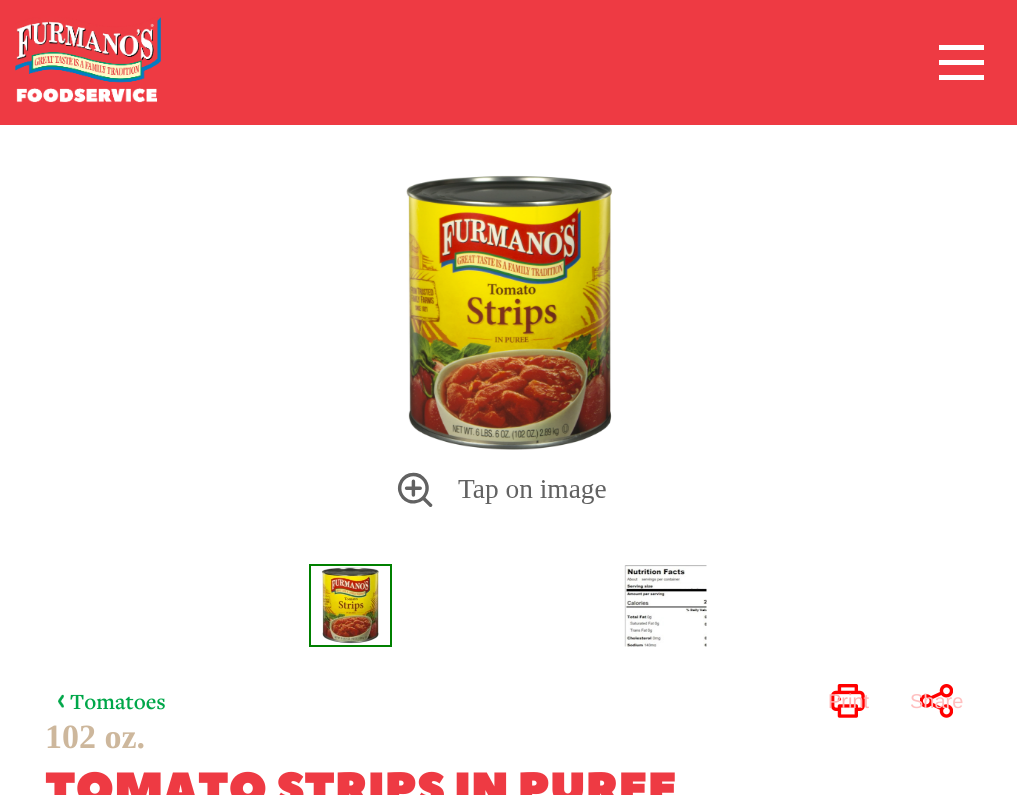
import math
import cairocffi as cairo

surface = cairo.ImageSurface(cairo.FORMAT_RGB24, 1017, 795)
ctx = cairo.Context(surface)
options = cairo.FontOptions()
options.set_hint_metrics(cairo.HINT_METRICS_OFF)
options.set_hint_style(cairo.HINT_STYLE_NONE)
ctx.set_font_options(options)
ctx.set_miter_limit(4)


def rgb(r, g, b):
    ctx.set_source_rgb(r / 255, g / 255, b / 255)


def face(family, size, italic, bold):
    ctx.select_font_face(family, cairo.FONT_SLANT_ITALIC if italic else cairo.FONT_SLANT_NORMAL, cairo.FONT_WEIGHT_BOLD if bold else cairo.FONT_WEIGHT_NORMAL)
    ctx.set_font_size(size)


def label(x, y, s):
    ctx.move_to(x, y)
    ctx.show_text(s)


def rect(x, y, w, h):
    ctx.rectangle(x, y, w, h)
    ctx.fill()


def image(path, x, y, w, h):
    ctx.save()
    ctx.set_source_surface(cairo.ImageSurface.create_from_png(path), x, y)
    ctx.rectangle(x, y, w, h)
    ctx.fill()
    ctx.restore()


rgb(255, 255, 255)
ctx.paint()
rgb(238, 58, 67)
rect(0, 0, 1017, 125)
image('image0.png', 15, 17, 146, 86)
rgb(255, 255, 255)
rect(939, 45, 45, 5)
rect(939, 60, 45, 5)
rect(939, 75, 45, 5)
image('image1.png', 406, 175, 207, 275)
image('image2.png', 397, 472, 209, 35)
ctx.rectangle(310, 565, 81, 81)
rgb(0, 128, 0)
ctx.stroke()
image('image3.png', 321, 567, 58, 77)
image('image4.png', 624, 565, 83, 82)
image('image5.png', 58, 694, 6, 14)
face('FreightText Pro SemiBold', 22.5, 0, 0)
rgb(0, 167, 73)
label(70, 709, 'Tomatoes')
image('image6.png', 831, 684, 34, 34)
face('Liberation Sans', 20, 0, 0)
rgb(255, 177, 177)
label(828, 708, 'Print')
image('image7.png', 920, 684, 33, 34)
rgb(255, 191, 191)
label(910, 708, 'Share')
face('Liberation Serif', 34, 0, 1)
rgb(205, 183, 156)
label(45, 748, '102 oz.')
face('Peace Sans', 45, 0, 0)
rgb(238, 58, 67)
label(45, 804, 'TOMATO STRIPS IN PUREE')
surface.write_to_png('render.png')
